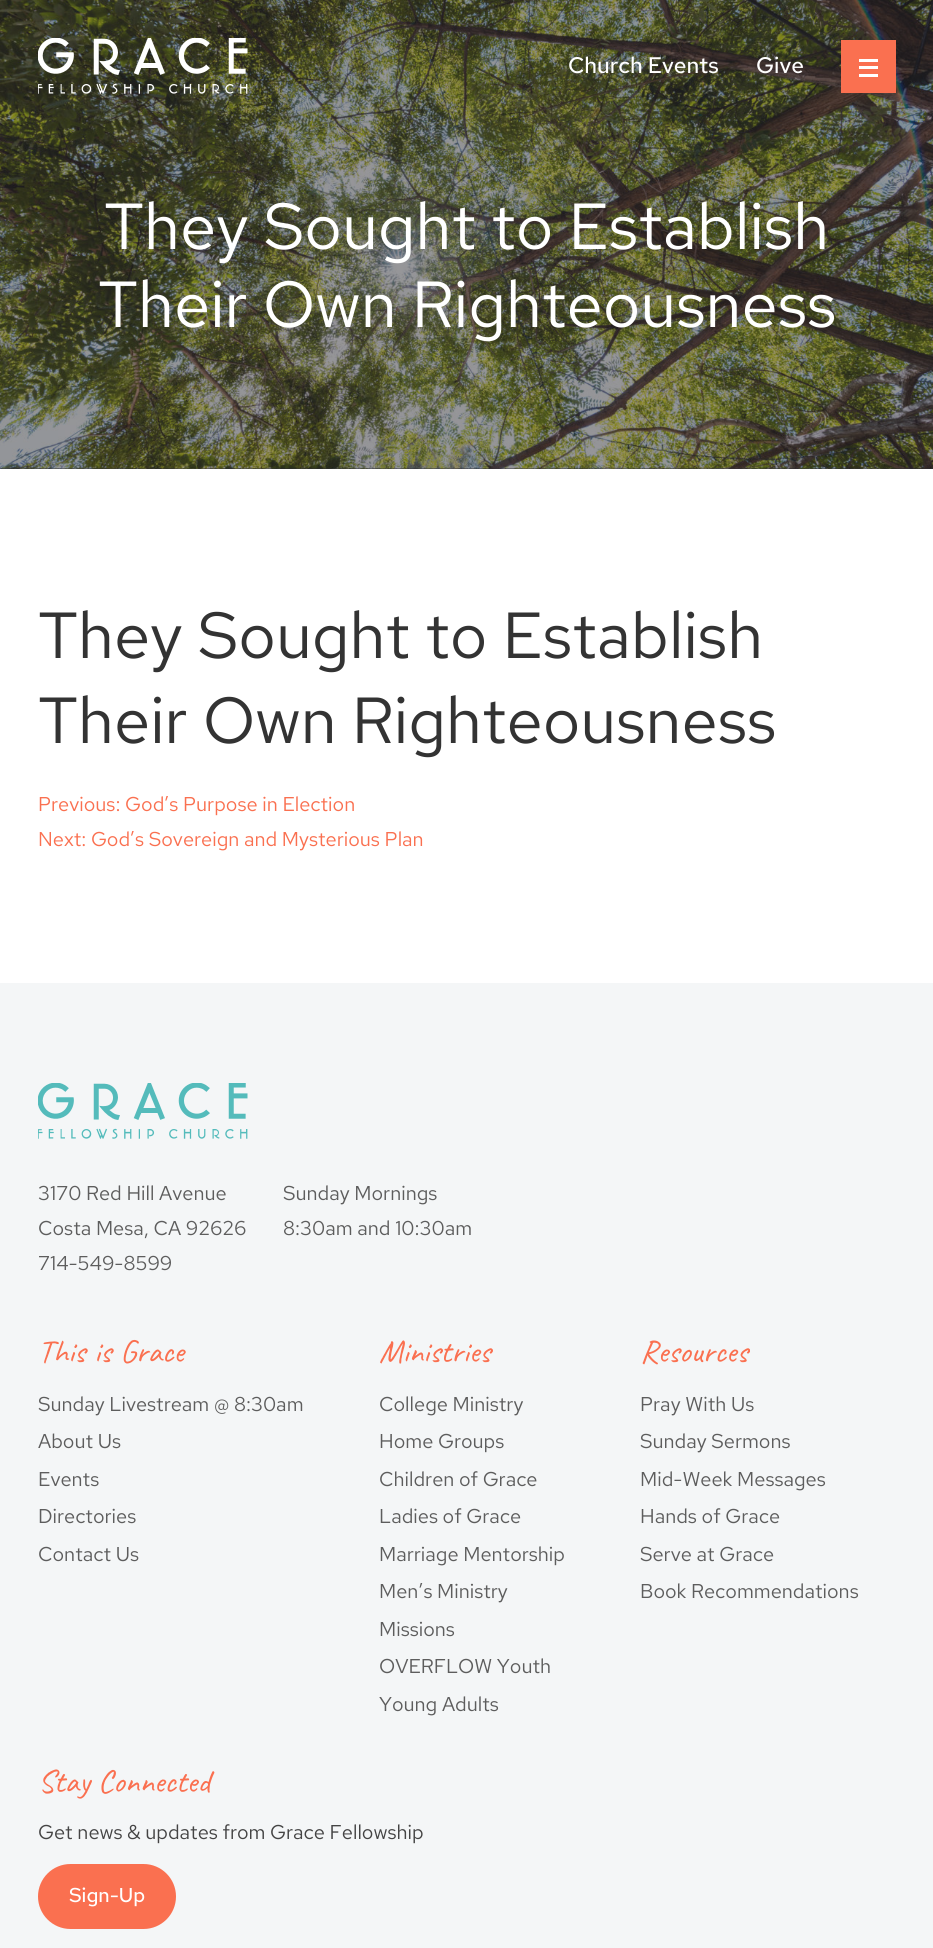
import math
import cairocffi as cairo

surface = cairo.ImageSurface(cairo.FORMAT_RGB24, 933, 1948)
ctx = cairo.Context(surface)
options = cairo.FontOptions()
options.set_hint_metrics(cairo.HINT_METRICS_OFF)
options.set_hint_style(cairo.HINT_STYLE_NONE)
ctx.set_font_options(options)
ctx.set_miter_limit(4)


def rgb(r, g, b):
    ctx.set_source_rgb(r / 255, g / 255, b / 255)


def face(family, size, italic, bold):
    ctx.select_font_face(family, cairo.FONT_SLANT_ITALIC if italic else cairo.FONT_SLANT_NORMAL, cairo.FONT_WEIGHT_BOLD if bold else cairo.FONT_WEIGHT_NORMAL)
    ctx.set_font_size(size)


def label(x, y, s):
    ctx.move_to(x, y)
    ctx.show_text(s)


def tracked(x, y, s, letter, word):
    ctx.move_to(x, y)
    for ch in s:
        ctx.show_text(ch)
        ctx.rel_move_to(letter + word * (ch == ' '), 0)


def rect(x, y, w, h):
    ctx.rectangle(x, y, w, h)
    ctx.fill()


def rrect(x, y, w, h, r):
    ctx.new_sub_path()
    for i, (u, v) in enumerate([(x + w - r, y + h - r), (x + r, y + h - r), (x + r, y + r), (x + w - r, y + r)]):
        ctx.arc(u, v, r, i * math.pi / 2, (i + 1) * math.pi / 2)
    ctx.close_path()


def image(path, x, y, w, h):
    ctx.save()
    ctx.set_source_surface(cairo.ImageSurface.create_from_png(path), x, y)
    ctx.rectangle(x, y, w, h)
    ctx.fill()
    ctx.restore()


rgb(255, 255, 255)
ctx.paint()
rgb(45, 45, 51)
rect(0, 0, 933, 469)
image('image1.png', 0, 0, 933, 469)
image('image0.png', 38, 38, 210, 56)
face('Red Hat Text Medium', 22.5, 0, 0)
rgb(255, 255, 255)
label(568, 73, 'Church Events')
label(756, 73, 'Give')
rgb(250, 112, 80)
rect(841, 40, 55, 53)
rgb(255, 255, 255)
rect(859, 66, 19, 3)
rect(859, 59, 19, 3)
rect(859, 74, 19, 3)
face('Red Hat Text', 65, 0, 0)
label(104, 249, 'They Sought to Establish')
label(98, 327, 'Their Own Righteousness')
rgb(51, 51, 51)
label(38, 658, 'They Sought to Establish')
label(38, 743, 'Their Own Righteousness')
face('Red Hat Text', 20, 0, 0)
rgb(250, 112, 80)
label(38, 811, 'Previous: God’s Purpose in Election')
label(38, 846, 'Next: God’s Sovereign and Mysterious Plan')
rgb(244, 246, 247)
rect(0, 983, 933, 965)
image('image2.png', 38, 1083, 210, 56)
rgb(93, 93, 93)
label(38, 1200, '3170 Red Hill Avenue')
label(38, 1235, 'Costa Mesa, CA 92626')
label(38, 1270, '714-549-8599')
label(283, 1200, 'Sunday Mornings')
label(283, 1235, '8:30am and 10:30am')
face('Caveat', 32.5, 0, 0)
rgb(250, 112, 80)
tracked(38, 1362, 'This is Grace', 0, 1)
face('Red Hat Text', 20, 0, 0)
rgb(93, 93, 93)
label(38, 1411, 'Sunday Livestream @ 8:30am')
label(38, 1448, 'About Us')
label(38, 1486, 'Events')
label(38, 1523, 'Directories')
label(38, 1561, 'Contact Us')
face('Caveat', 32.5, 0, 0)
rgb(250, 112, 80)
label(379, 1362, 'Ministries')
face('Red Hat Text', 20, 0, 0)
rgb(93, 93, 93)
label(379, 1411, 'College Ministry')
label(379, 1448, 'Home Groups')
label(379, 1486, 'Children of Grace')
label(379, 1523, 'Ladies of Grace')
label(379, 1561, 'Marriage Mentorship')
label(379, 1598, 'Men’s Ministry')
label(379, 1636, 'Missions')
label(379, 1673, 'OVERFLOW Youth')
label(379, 1711, 'Young Adults')
face('Caveat', 32.5, 0, 0)
rgb(250, 112, 80)
label(640, 1362, 'Resources')
face('Red Hat Text', 20, 0, 0)
rgb(93, 93, 93)
label(640, 1411, 'Pray With Us')
label(640, 1448, 'Sunday Sermons')
label(640, 1486, 'Mid-Week Messages')
label(640, 1523, 'Hands of Grace')
label(640, 1561, 'Serve at Grace')
label(640, 1598, 'Book Recommendations')
face('Caveat', 32.5, 0, 0)
rgb(250, 112, 80)
label(38, 1792, 'Stay Connected')
face('Red Hat Text', 20, 0, 0)
rgb(68, 68, 68)
label(38, 1839, 'Get news & updates from Grace Fellowship')
rgb(250, 112, 80)
rrect(38, 1864, 138, 65, 32.5)
ctx.fill()
face('Red Hat Text Medium', 20, 0, 0)
rgb(255, 255, 255)
label(69, 1902, 'Sign-Up')
surface.write_to_png('render.png')
